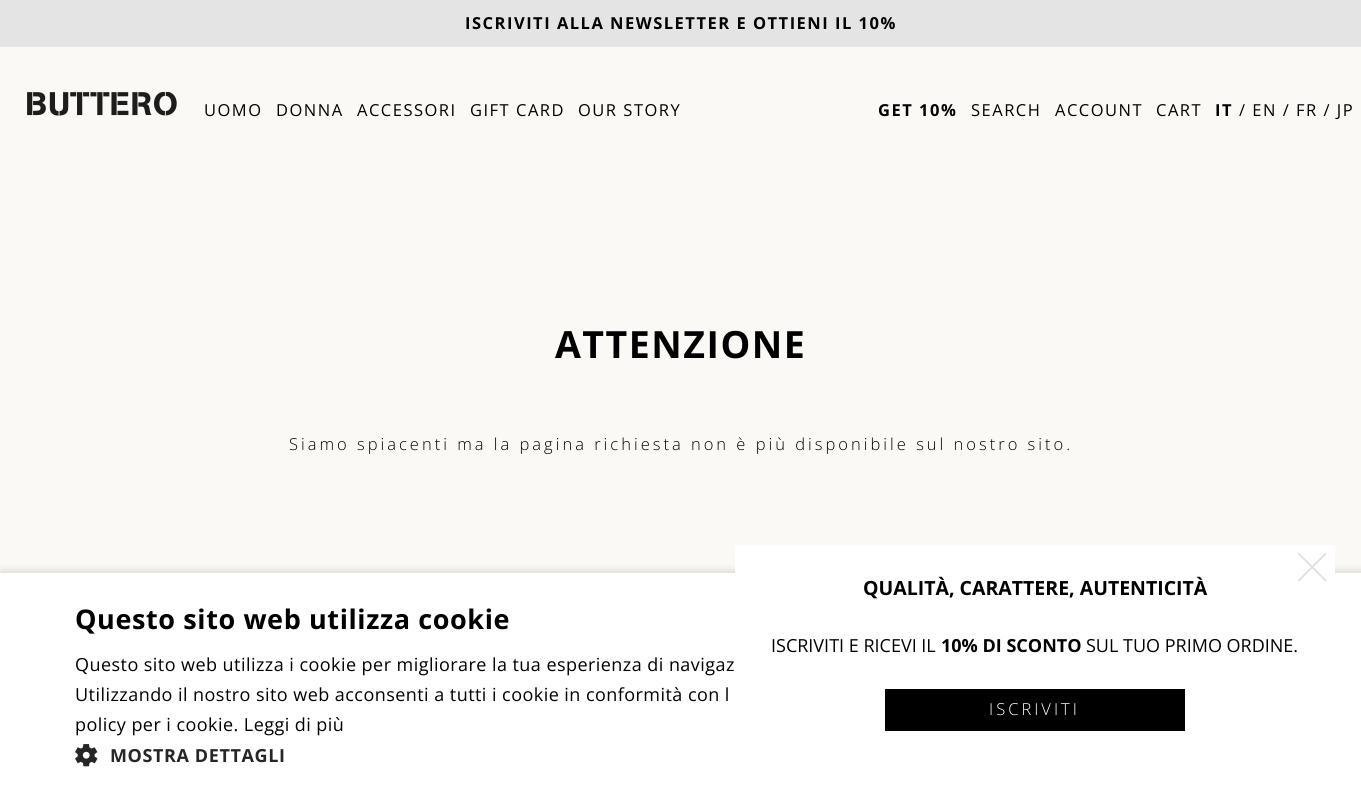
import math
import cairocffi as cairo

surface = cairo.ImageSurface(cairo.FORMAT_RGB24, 1361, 792)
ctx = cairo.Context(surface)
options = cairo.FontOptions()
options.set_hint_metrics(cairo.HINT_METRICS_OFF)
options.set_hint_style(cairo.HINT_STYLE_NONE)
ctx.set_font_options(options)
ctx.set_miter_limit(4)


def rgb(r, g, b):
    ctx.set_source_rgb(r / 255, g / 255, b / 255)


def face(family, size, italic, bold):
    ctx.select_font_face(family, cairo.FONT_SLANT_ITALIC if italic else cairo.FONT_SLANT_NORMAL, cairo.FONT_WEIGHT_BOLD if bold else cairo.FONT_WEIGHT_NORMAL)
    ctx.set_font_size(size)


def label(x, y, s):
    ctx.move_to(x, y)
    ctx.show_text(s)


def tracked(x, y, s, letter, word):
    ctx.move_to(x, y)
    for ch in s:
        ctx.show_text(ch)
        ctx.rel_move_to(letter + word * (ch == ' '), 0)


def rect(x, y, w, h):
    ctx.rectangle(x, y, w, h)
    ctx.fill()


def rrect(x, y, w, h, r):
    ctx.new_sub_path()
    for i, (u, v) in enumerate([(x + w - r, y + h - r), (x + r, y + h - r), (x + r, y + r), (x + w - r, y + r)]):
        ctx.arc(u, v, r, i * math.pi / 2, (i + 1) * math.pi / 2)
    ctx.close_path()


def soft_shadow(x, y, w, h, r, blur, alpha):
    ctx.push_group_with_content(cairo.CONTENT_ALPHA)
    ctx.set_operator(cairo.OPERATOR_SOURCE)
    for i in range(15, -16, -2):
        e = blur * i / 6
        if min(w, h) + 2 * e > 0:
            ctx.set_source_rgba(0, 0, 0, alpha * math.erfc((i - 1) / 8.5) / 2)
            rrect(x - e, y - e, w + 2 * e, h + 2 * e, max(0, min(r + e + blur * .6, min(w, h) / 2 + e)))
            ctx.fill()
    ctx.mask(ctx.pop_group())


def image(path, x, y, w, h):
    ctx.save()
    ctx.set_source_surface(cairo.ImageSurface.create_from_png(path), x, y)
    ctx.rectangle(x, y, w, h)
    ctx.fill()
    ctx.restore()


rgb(251, 249, 246)
ctx.paint()
rgb(228, 228, 228)
rect(0, 0, 1361, 47)
face('Open Sans', 16.5, 0, 1)
rgb(0, 0, 0)
tracked(465, 29, 'ISCRIVITI ALLA NEWSLETTER E OTTIENI IL 10%', 1.5, 0)
image('image0.png', 27, 92, 150, 24)
face('Open Sans', 16.5, 0, 0)
tracked(204, 116, 'UOMO', 1.5, 0)
tracked(276, 116, 'DONNA', 1.5, 0)
tracked(357, 116, 'ACCESSORI', 1.5, 0)
tracked(470, 116, 'GIFT CARD', 1.5, 0)
tracked(578, 116, 'OUR STORY', 1.5, 0)
face('Open Sans', 16.5, 0, 1)
tracked(878, 116, 'GET 10%', 1.5, 0)
face('Open Sans', 16.5, 0, 0)
tracked(971, 116, 'SEARCH', 1.5, 0)
tracked(1055, 116, 'ACCOUNT', 1.5, 0)
tracked(1156, 116, 'CART', 1.5, 0)
face('Open Sans', 16.5, 0, 1)
tracked(1215, 116, 'IT', 1.5, 0)
face('Open Sans', 16.5, 0, 0)
tracked(1239, 116, '/ EN / FR / JP', 1.5, 0)
face('Open Sans', 37.5, 0, 1)
tracked(555, 358, 'ATTENZIONE', 1.5, 0)
face('Open Sans Light', 16.5, 0, 0)
tracked(289, 450, 'Siamo spiacenti ma la pagina richiesta non è più disponibile sul nostro sito.', 3, 0)
rgb(0, 0, 0)
soft_shadow(2, 576, 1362, 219, 0, 6, 0.35)
rgb(255, 255, 255)
rect(0, 573, 1361, 219)
face('Open Sans', 27, 0, 1)
rgb(0, 0, 0)
tracked(75, 629, 'Questo sito web utilizza cookie', 0.6, 0)
face('Open Sans', 18, 0, 0)
tracked(75, 671, 'Questo sito web utilizza i cookie per migliorare la tua esperienza di navigaz', 0.45, 0)
tracked(75, 701, 'Utilizzando il nostro sito web acconsenti a tutti i cookie in conformità con l', 0.45, 0)
tracked(75, 731, 'policy per i cookie. Leggi di più', 0.45, 0)
image('image1.png', 75, 744, 23, 23)
face('Open Sans', 18, 0, 1)
rgb(38, 38, 38)
tracked(110, 762, 'MOSTRA DETTAGLI', 0.6, 0)
rgb(255, 255, 255)
rect(735, 545, 600, 28)
image('image2.png', 1298, 552, 29, 30)
face('Open Sans', 19.5, 0, 1)
rgb(0, 0, 0)
label(863, 595, 'QUALITÀ, CARATTERE, AUTENTICITÀ')
face('Open Sans', 18, 0, 0)
label(771, 652, 'ISCRIVITI E RICEVI IL')
face('Open Sans', 18, 0, 1)
label(941, 652, '10% DI SCONTO')
face('Open Sans', 18, 0, 0)
label(1086, 652, 'SUL TUO PRIMO ORDINE.')
rect(885, 689, 300, 42)
face('Open Sans Light', 16.5, 0, 0)
rgb(255, 255, 255)
tracked(989, 715, 'ISCRIVITI', 3, 0)
surface.write_to_png('render.png')
